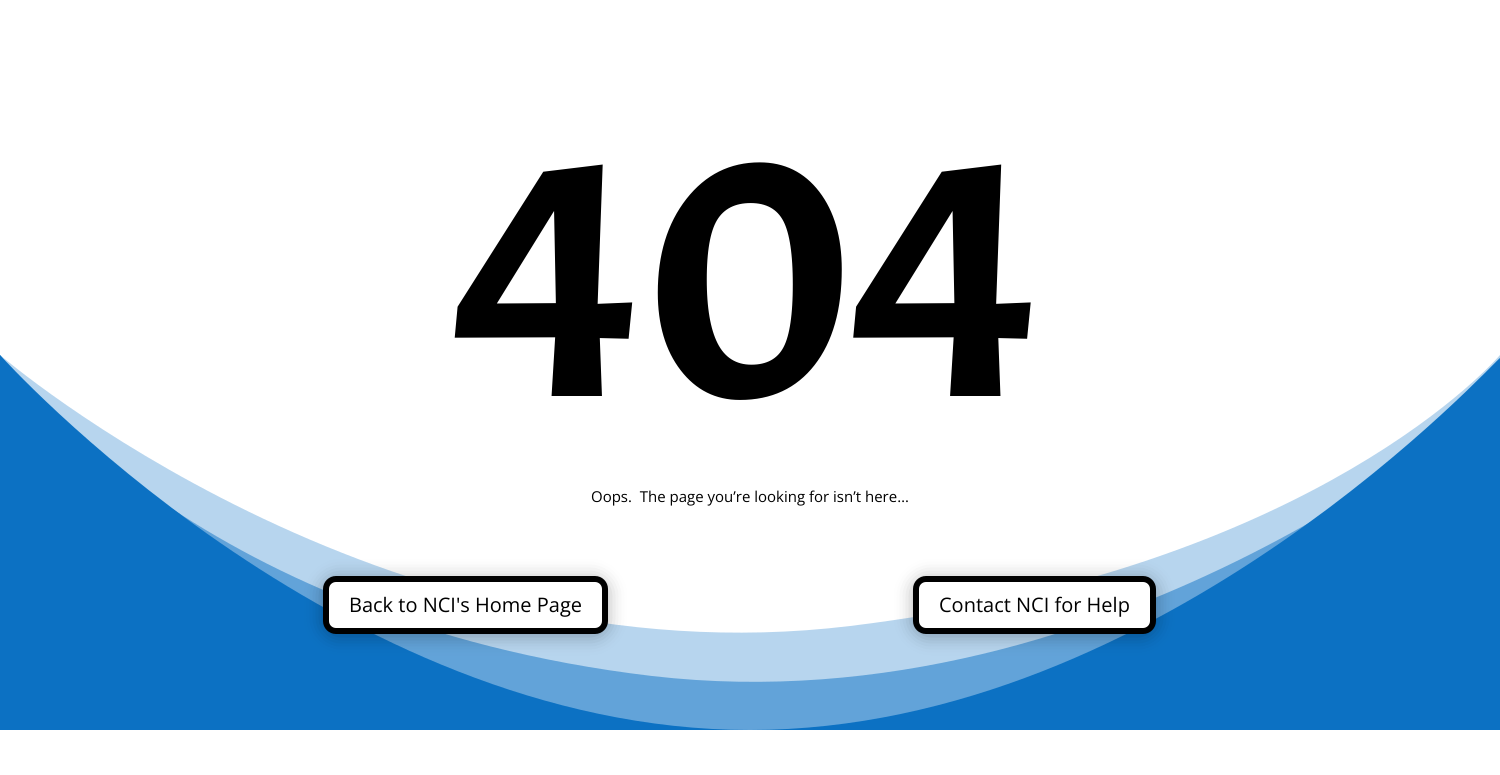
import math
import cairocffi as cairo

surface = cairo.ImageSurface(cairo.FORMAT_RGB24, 1500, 775)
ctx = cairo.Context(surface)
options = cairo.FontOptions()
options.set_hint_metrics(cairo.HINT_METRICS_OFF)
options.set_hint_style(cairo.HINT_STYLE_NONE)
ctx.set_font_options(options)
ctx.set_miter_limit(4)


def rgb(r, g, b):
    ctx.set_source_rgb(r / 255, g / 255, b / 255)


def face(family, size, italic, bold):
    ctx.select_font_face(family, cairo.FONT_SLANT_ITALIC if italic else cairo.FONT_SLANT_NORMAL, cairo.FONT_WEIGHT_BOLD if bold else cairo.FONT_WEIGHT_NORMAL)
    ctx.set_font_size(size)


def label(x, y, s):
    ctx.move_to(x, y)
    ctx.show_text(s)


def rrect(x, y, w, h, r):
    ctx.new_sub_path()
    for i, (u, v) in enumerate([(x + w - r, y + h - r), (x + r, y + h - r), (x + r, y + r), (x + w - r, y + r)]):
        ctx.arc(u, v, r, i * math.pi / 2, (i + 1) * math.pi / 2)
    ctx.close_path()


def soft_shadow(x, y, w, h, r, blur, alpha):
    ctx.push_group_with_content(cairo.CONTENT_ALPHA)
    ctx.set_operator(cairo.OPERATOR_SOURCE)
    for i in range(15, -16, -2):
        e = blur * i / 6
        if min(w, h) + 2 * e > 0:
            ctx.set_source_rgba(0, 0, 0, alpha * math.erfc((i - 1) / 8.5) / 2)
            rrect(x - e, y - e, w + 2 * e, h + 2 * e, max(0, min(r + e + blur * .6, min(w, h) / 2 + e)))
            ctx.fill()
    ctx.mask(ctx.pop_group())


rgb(255, 255, 255)
ctx.paint()
rgb(183, 213, 238)
ctx.new_path()
ctx.move_to(850, 626)
ctx.curve_to(381, 683, 0, 355, 0, 355)
ctx.line_to(0, 730)
ctx.line_to(1500, 730)
ctx.line_to(1500, 355)
ctx.curve_to(1500, 355, 1319, 569, 850, 626)
ctx.close_path()
ctx.fill()
rgb(98, 163, 217)
ctx.new_path()
ctx.move_to(652, 676)
ctx.curve_to(1117, 730, 1500, 392, 1500, 392)
ctx.line_to(1500, 730)
ctx.line_to(0, 730)
ctx.line_to(0, 355)
ctx.curve_to(0, 355, 187, 621, 652, 676)
ctx.close_path()
ctx.fill()
ctx.save()
ctx.rectangle(0, 355, 1500, 375)
ctx.clip()
rgb(12, 113, 195)
ctx.new_path()
ctx.move_to(750, 730)
ctx.curve_to(1164, 730, 1500, 355, 1500, 358)
ctx.line_to(1500, 733)
ctx.line_to(0, 733)
ctx.line_to(0, 355)
ctx.curve_to(0, 355, 336, 730, 750, 730)
ctx.close_path()
ctx.fill()
ctx.restore()
face('Acme', 360, 0, 0)
rgb(0, 0, 0)
label(454, 396, '404')
face('Open Sans', 15, 0, 0)
label(591, 502, 'Oops.  The page you’re looking for isn’t here…')
rgb(0, 0, 0)
soft_shadow(323, 578, 285, 58, 13, 9, 0.3)
rgb(255, 255, 255)
rrect(326, 579, 279, 52, 10)
ctx.fill_preserve()
rgb(0, 0, 0)
ctx.set_line_width(6)
ctx.stroke()
face('Open Sans', 20, 0, 0)
label(349, 612, 'Back to NCI\'s Home Page')
rgb(0, 0, 0)
soft_shadow(913, 578, 243, 58, 13, 9, 0.3)
rgb(255, 255, 255)
rrect(916, 579, 237, 52, 10)
ctx.fill_preserve()
rgb(0, 0, 0)
ctx.stroke()
label(939, 612, 'Contact NCI for Help')
surface.write_to_png('render.png')
